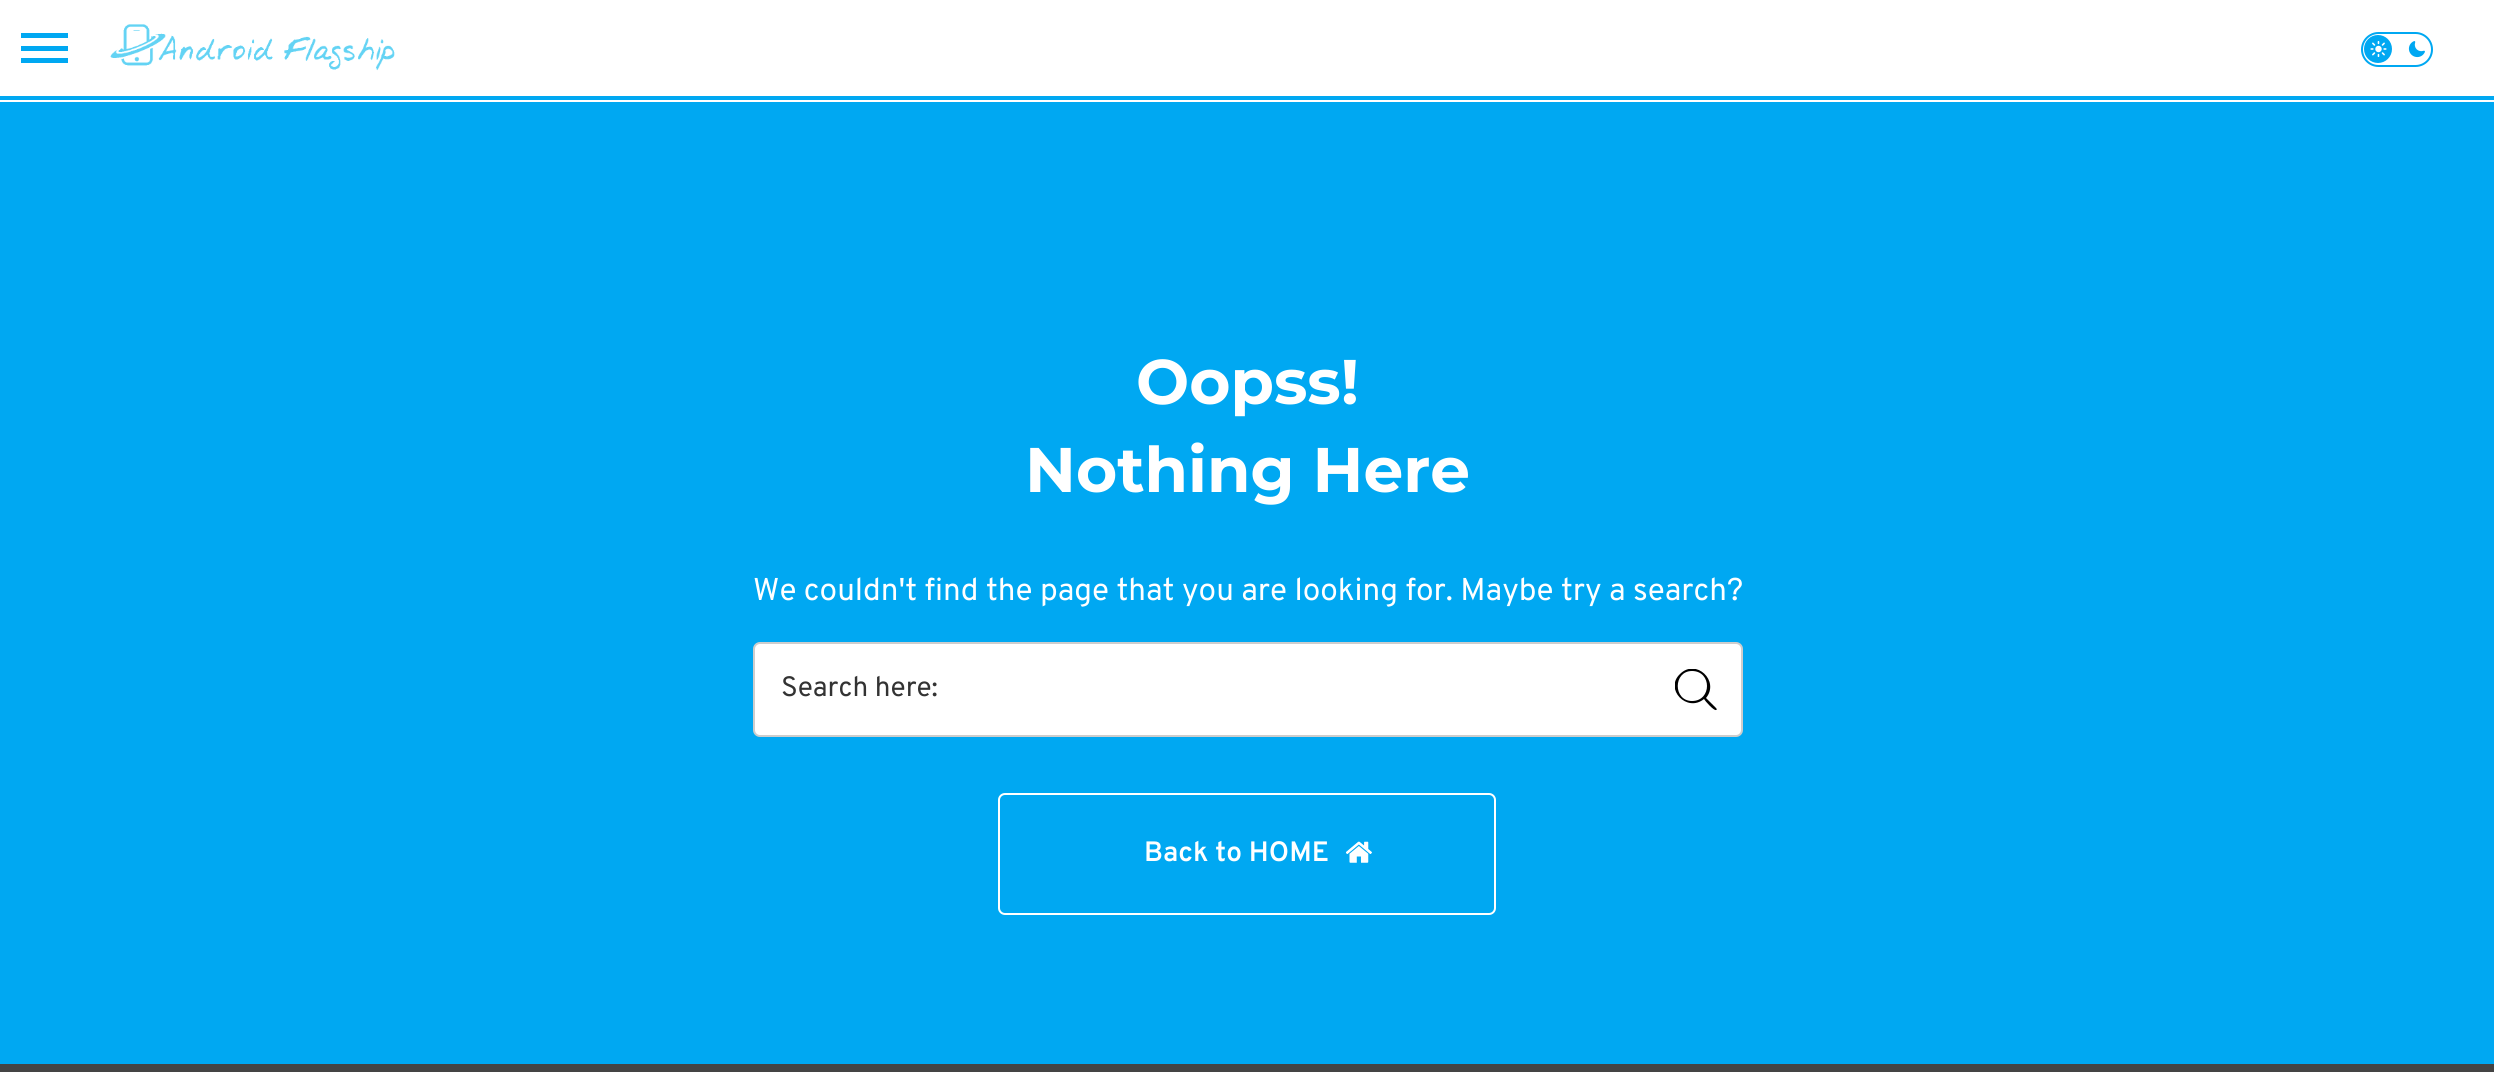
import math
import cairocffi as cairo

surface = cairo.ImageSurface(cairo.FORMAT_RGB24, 2494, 1072)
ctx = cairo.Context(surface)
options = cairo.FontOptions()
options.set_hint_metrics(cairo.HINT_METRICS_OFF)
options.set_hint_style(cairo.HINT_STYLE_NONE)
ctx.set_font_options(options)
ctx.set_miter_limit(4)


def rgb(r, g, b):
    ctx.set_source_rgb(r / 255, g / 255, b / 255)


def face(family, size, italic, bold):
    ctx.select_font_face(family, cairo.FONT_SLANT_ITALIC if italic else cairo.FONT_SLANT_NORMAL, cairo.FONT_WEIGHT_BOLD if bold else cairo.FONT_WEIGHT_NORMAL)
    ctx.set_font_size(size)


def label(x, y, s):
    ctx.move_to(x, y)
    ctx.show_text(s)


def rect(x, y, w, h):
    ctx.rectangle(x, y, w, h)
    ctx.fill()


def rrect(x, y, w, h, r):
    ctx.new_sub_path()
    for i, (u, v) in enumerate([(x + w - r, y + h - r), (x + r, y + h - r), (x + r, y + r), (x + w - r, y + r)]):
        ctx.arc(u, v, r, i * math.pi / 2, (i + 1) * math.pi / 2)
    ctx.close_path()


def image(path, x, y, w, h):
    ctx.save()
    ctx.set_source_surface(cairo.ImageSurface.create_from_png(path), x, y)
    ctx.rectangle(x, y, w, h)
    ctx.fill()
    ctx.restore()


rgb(255, 255, 255)
ctx.paint()
rgb(0, 168, 242)
rect(0, 96, 2494, 4)
rect(21, 46, 47, 5)
rect(21, 33, 47, 5)
rect(21, 58, 47, 5)
image('image0.png', 110, 24, 285, 47)
rrect(2362, 33, 70, 33, 16.5)
ctx.stroke()
ctx.arc(2378, 49, 14, 0, 2 * math.pi)
ctx.fill()
image('image1.png', 2370, 41, 17, 16)
image('image2.png', 2408, 41, 17, 17)
rect(0, 102, 2494, 962)
face('Montserrat Thin', 63, 0, 0)
rgb(255, 255, 255)
label(1136, 404, 'Oopss!')
label(1025, 492, 'Nothing Here')
face('Overpass', 31.5, 0, 0)
label(753, 600, 'We couldn\'t find the page that you are looking for. Maybe try a search?')
rrect(754, 643, 988, 93, 6)
ctx.fill_preserve()
rgb(205, 205, 205)
ctx.stroke()
face('Overpass', 28, 0, 0)
rgb(51, 51, 51)
label(781, 696, 'Search here:')
ctx.save()
ctx.rectangle(1675, 669, 42, 42)
ctx.clip()
rgb(0, 0, 0)
ctx.new_path()
ctx.move_to(1716, 708)
ctx.line_to(1706, 698)
ctx.curve_to(1720, 681, 1696, 658, 1680, 674)
ctx.curve_to(1664, 689, 1687, 713, 1704, 699)
ctx.curve_to(1705, 701, 1714, 711, 1716, 710)
ctx.curve_to(1717, 710, 1717, 709, 1716, 708)
ctx.close_path()
ctx.move_to(1692, 701)
ctx.curve_to(1673, 701, 1673, 671, 1692, 671)
ctx.curve_to(1712, 671, 1712, 701, 1692, 701)
ctx.close_path()
ctx.fill()
ctx.restore()
rrect(999, 794, 496, 120, 6)
rgb(255, 255, 255)
ctx.stroke()
face('Overpass SemiBold', 28, 0, 0)
label(1144, 861, 'Back to HOME')
image('image3.png', 1346, 841, 26, 22)
rgb(68, 68, 68)
rect(0, 1064, 2494, 8)
surface.write_to_png('render.png')
